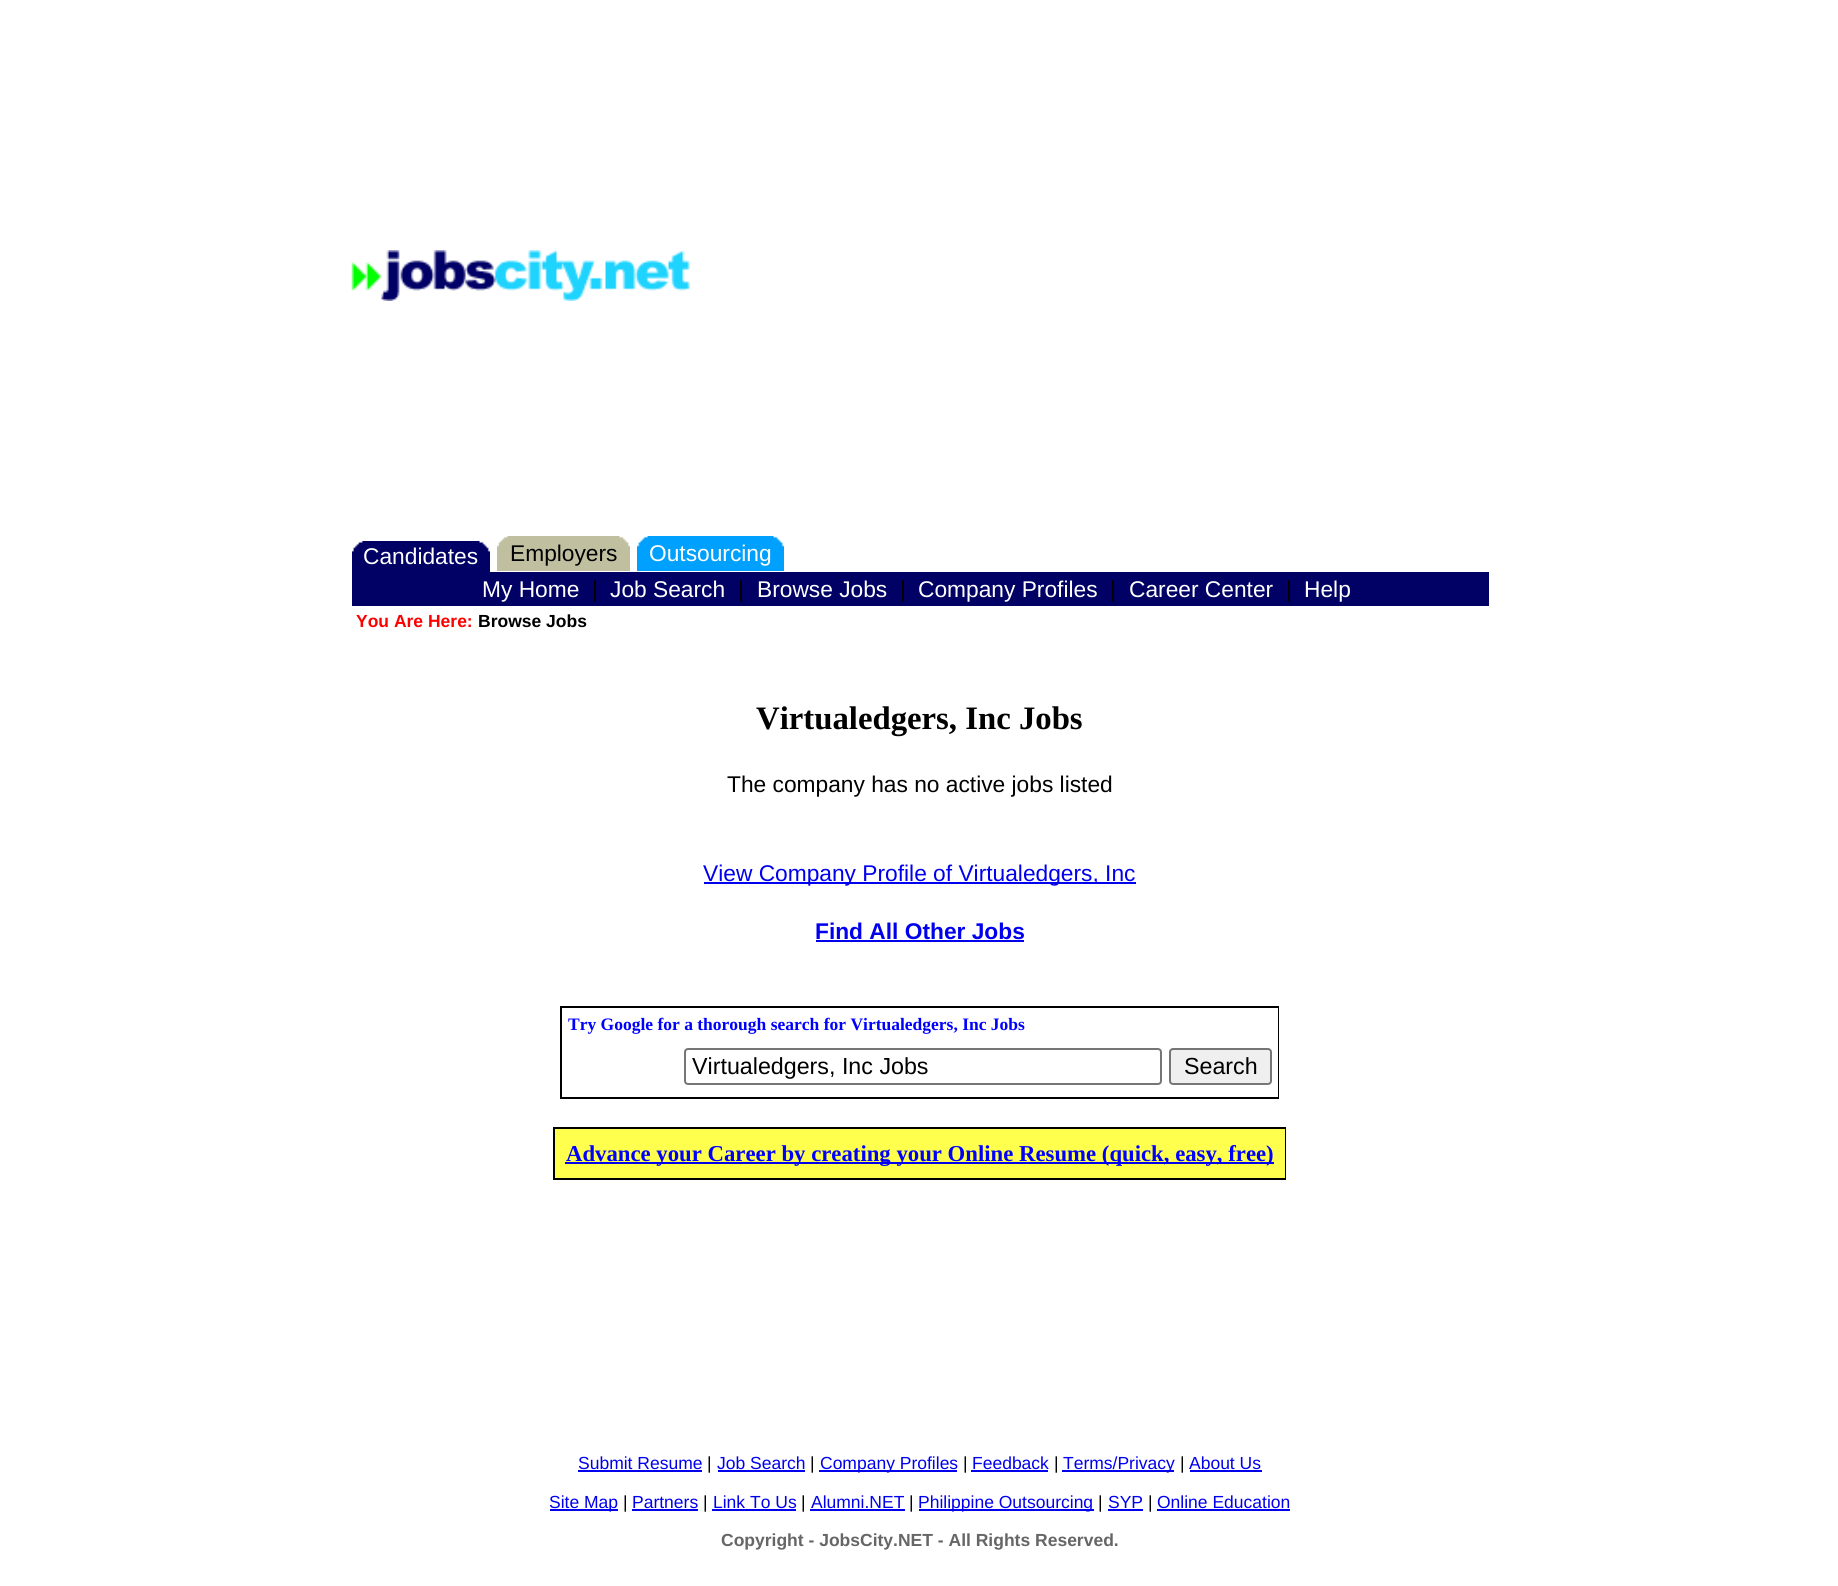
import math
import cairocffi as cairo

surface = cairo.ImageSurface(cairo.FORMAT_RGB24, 1838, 1586)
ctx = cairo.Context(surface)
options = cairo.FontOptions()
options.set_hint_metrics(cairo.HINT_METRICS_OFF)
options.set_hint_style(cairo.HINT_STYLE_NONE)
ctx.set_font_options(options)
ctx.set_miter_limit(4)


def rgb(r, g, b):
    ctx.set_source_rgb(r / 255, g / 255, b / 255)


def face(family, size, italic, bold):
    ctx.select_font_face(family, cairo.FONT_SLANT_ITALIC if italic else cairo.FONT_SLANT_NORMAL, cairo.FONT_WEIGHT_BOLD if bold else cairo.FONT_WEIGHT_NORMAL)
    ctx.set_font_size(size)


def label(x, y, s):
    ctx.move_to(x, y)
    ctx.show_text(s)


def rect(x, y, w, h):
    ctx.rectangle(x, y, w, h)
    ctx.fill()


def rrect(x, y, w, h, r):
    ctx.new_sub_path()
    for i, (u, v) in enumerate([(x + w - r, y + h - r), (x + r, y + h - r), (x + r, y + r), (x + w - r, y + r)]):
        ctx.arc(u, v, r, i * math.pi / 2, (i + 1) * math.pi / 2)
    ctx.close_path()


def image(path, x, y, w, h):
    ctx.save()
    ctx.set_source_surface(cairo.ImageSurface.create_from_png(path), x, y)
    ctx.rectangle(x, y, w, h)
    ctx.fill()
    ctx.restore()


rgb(255, 255, 255)
ctx.paint()
image('image0.png', 351, 250, 339, 51)
rgb(0, 0, 101)
rect(352, 541, 138, 31)
image('image1.png', 352, 541, 11, 11)
face('Liberation Sans', 22.75, 0, 0)
rgb(255, 255, 255)
label(363, 564, 'Candidates')
image('image2.png', 479, 541, 11, 11)
rgb(192, 192, 160)
rect(497, 536, 133, 35)
image('image3.png', 497, 536, 11, 11)
image('image4.png', 619, 536, 11, 11)
rgb(0, 0, 0)
label(510, 561, 'Employers')
rgb(0, 160, 255)
rect(637, 536, 147, 35)
image('image5.png', 637, 536, 11, 11)
image('image6.png', 773, 536, 11, 11)
rgb(255, 255, 255)
label(649, 561, 'Outsourcing')
rgb(0, 0, 101)
rect(352, 572, 1137, 34)
rgb(255, 255, 255)
label(482, 597, 'My Home')
rgb(0, 0, 0)
label(592, 597, '|')
rgb(255, 255, 255)
label(610, 597, 'Job Search')
rgb(0, 0, 0)
label(738, 597, '|')
rgb(255, 255, 255)
label(757, 597, 'Browse Jobs')
rgb(0, 0, 0)
label(900, 597, '|')
rgb(255, 255, 255)
label(918, 597, 'Company Profiles')
rgb(0, 0, 0)
label(1110, 597, '|')
rgb(255, 255, 255)
label(1129, 597, 'Career Center')
rgb(0, 0, 0)
label(1286, 597, '|')
rgb(255, 255, 255)
label(1304, 597, 'Help')
face('Liberation Sans', 17.5, 0, 1)
rgb(255, 0, 0)
label(356, 627, 'You Are Here:')
rgb(0, 0, 0)
label(478, 627, 'Browse Jobs')
face('Liberation Serif', 32.75, 0, 1)
label(756, 729, 'Virtualedgers, Inc Jobs')
face('Liberation Sans', 22.75, 0, 0)
label(727, 792, 'The company has no active jobs listed')
rgb(0, 0, 238)
rect(704, 882, 432, 2)
label(703, 881, 'View Company Profile of Virtualedgers, Inc')
face('Liberation Sans', 22.75, 0, 1)
label(815, 939, 'Find All Other Jobs')
rect(816, 940, 208, 2)
rgb(0, 0, 0)
rect(560, 1006, 719, 93)
rgb(255, 255, 255)
rect(562, 1008, 716, 89)
face('Liberation Serif', 17.5, 0, 1)
rgb(0, 0, 255)
label(568, 1030, 'Try Google for a thorough search for Virtualedgers, Inc Jobs')
rrect(685, 1049, 476, 35, 3)
rgb(118, 118, 118)
ctx.stroke()
face('Liberation Sans', 23.25, 0, 0)
rgb(0, 0, 0)
label(692, 1074, 'Virtualedgers, Inc Jobs')
rgb(239, 239, 239)
rrect(1170, 1049, 101, 35, 3)
ctx.fill_preserve()
rgb(118, 118, 118)
ctx.stroke()
rgb(0, 0, 0)
label(1184, 1074, 'Search')
rect(553, 1127, 733, 53)
rgb(255, 255, 78)
rect(555, 1129, 730, 49)
rgb(0, 0, 238)
rect(565, 1162, 709, 2)
face('Liberation Serif', 22.75, 0, 1)
rgb(0, 0, 255)
label(566, 1161, 'Advance your Career by creating your Online Resume (quick, easy, free)')
face('Liberation Sans', 17.5, 0, 0)
rgb(0, 0, 238)
label(578, 1469, 'Submit Resume')
rect(578, 1470, 124, 2)
rgb(0, 0, 0)
label(707, 1469, '|')
rgb(0, 0, 238)
label(717, 1469, 'Job Search')
rect(718, 1470, 87, 2)
rgb(0, 0, 0)
label(810, 1469, '|')
rgb(0, 0, 238)
rect(819, 1470, 138, 2)
label(820, 1469, 'Company Profiles')
rgb(0, 0, 0)
label(963, 1469, '|')
rgb(0, 0, 238)
label(972, 1469, 'Feedback')
rect(971, 1470, 77, 2)
rgb(0, 0, 0)
label(1054, 1469, '|')
rgb(0, 0, 238)
rect(1062, 1470, 112, 2)
label(1063, 1469, 'Terms/Privacy')
rgb(0, 0, 0)
label(1180, 1469, '|')
rgb(0, 0, 238)
label(1189, 1469, 'About Us')
rect(1190, 1470, 72, 2)
rect(550, 1509, 68, 2)
label(549, 1508, 'Site Map')
rgb(0, 0, 0)
label(623, 1508, '|')
rgb(0, 0, 238)
label(632, 1508, 'Partners')
rect(632, 1509, 66, 2)
rgb(0, 0, 0)
label(703, 1508, '|')
rgb(0, 0, 238)
label(713, 1508, 'Link To Us')
rect(712, 1509, 84, 2)
rgb(0, 0, 0)
label(801, 1508, '|')
rgb(0, 0, 238)
label(811, 1508, 'Alumni.NET')
rect(810, 1509, 95, 2)
rgb(0, 0, 0)
label(909, 1508, '|')
rgb(0, 0, 238)
rect(919, 1509, 175, 2)
label(918, 1508, 'Philippine Outsourcing')
rgb(0, 0, 0)
label(1098, 1508, '|')
rgb(0, 0, 238)
label(1108, 1508, 'SYP')
rect(1108, 1509, 35, 2)
rgb(0, 0, 0)
label(1148, 1508, '|')
rgb(0, 0, 238)
label(1157, 1508, 'Online Education')
rect(1157, 1509, 133, 2)
face('Liberation Sans', 17.5, 0, 1)
rgb(102, 102, 102)
label(721, 1546, 'Copyright - JobsCity.NET - All Rights Reserved.')
surface.write_to_png('render.png')
